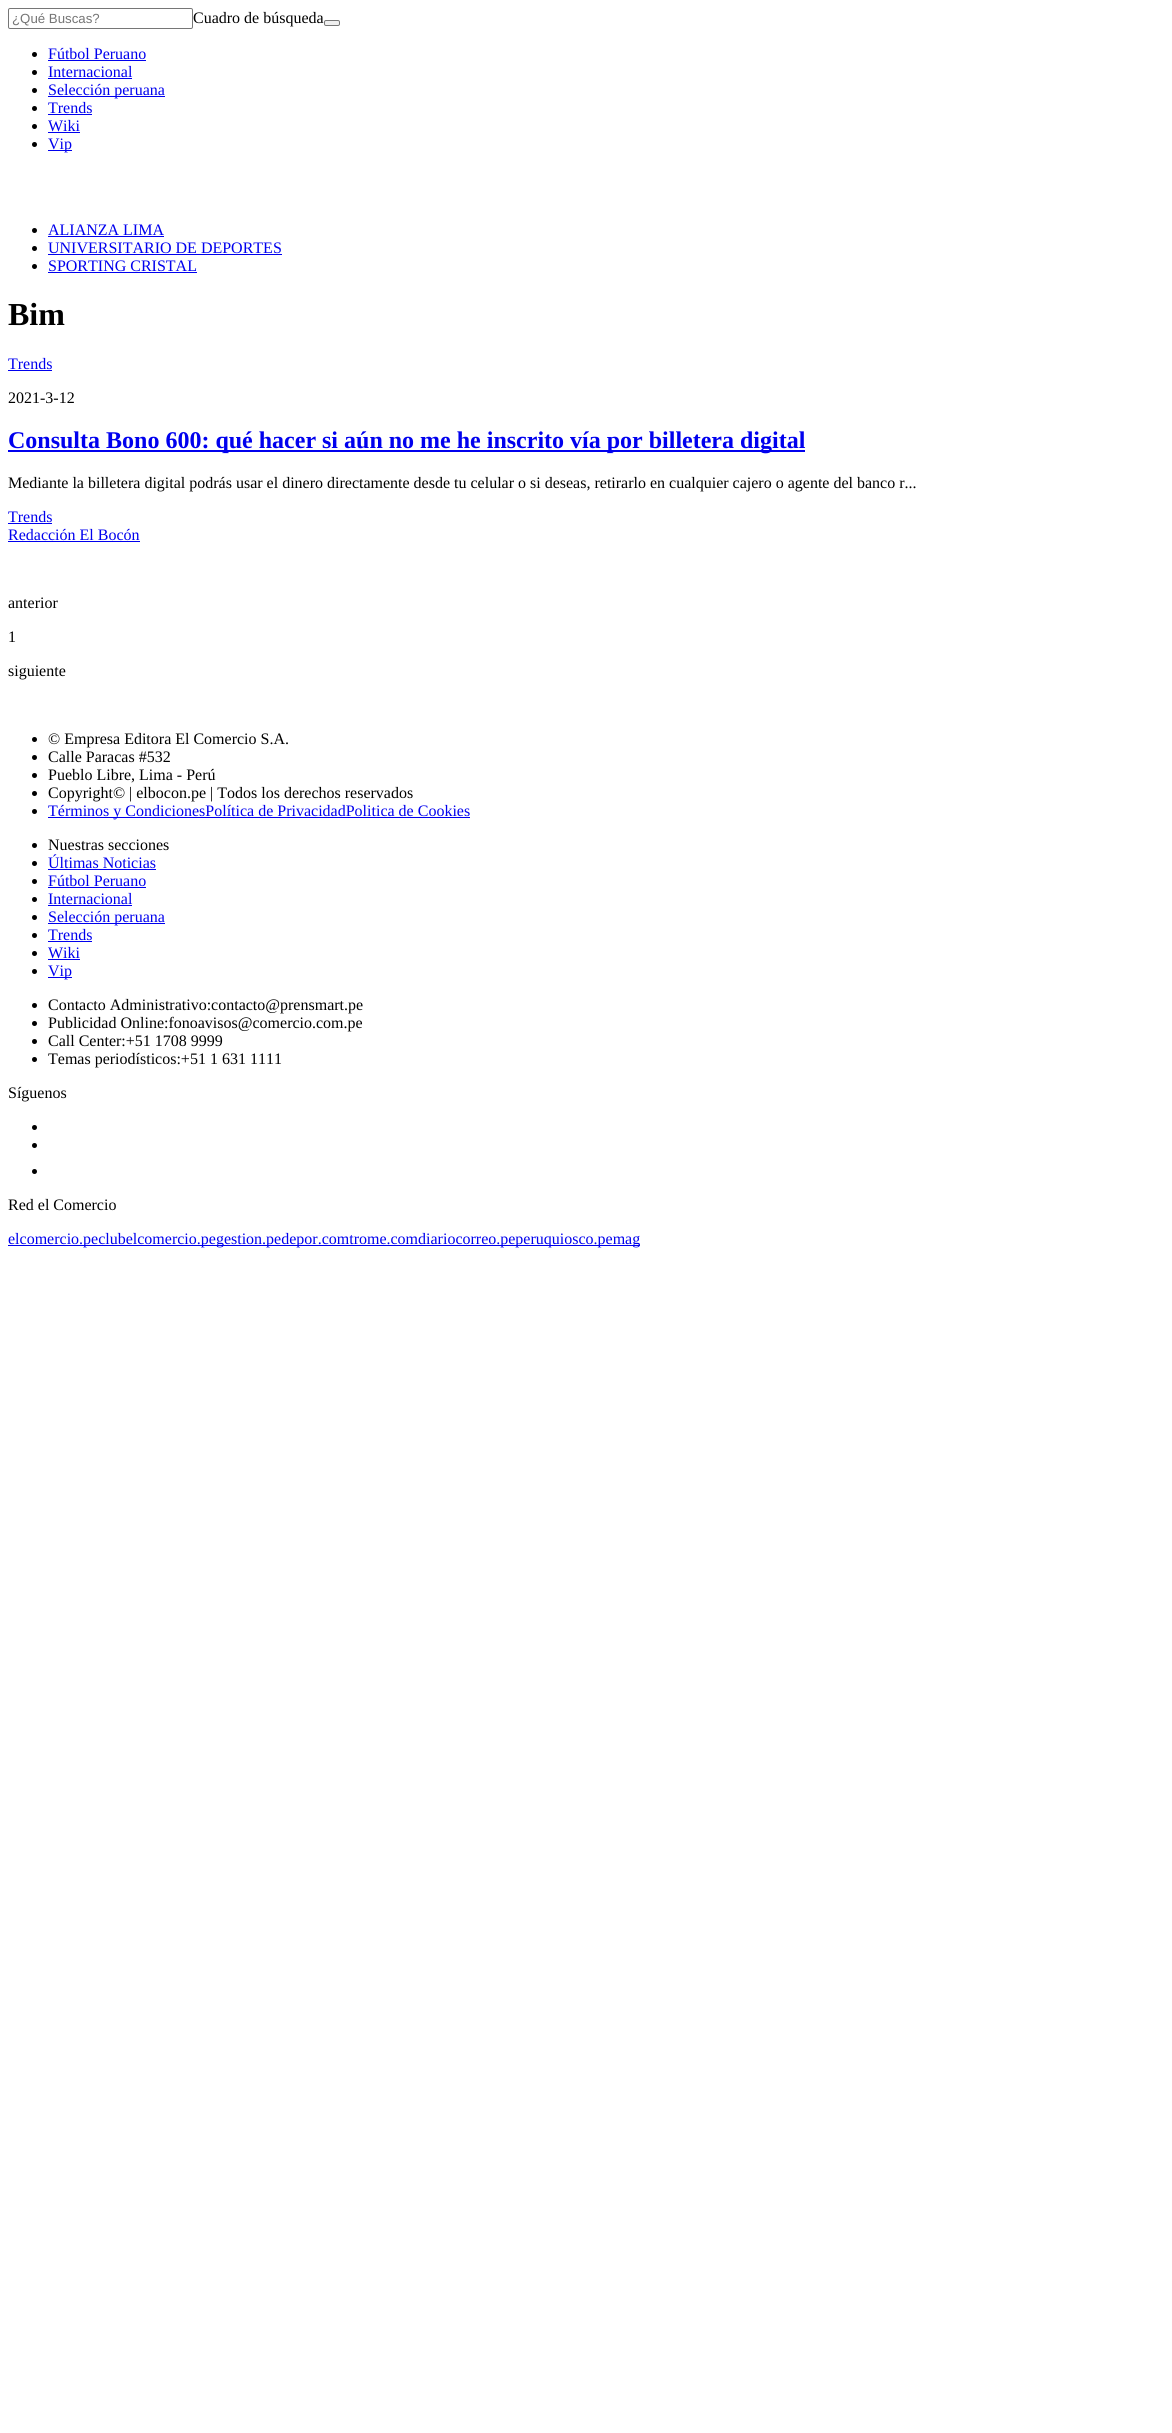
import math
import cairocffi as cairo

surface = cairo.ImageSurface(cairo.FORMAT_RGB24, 1172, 2433)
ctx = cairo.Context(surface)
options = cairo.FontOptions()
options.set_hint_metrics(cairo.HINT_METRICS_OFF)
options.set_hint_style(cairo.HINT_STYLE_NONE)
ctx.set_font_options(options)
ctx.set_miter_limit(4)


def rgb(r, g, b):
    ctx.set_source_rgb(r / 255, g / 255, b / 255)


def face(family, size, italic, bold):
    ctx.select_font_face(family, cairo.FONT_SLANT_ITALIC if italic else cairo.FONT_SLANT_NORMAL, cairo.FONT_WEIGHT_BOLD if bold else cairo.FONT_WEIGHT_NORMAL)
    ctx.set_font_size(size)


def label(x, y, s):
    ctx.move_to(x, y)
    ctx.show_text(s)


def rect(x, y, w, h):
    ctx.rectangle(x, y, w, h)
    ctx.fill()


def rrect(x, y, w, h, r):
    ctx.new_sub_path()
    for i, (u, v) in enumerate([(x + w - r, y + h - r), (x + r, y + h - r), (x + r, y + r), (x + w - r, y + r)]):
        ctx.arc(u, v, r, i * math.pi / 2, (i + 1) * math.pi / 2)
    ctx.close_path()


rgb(255, 255, 255)
ctx.paint()
rrect(8.5, 8.5, 184, 20, 1.5)
rgb(118, 118, 118)
ctx.set_line_width(1)
ctx.stroke()
face('Liberation Sans', 13.25, 0, 0)
rgb(117, 117, 117)
label(12, 23, '¿Qué Buscas?')
face('Liberation Serif', 16, 0, 0)
rgb(0, 0, 0)
label(193, 23, 'Cuadro de búsqueda')
rgb(239, 239, 239)
rrect(324.5, 20.5, 15, 5, 1.5)
ctx.fill_preserve()
rgb(118, 118, 118)
ctx.stroke()
rgb(0, 0, 0)
ctx.arc(34.5, 54.5, 2.5, 0, 2 * math.pi)
ctx.fill()
rgb(0, 0, 238)
label(48, 59, 'Fútbol Peruano')
rect(48, 60, 98, 1)
rgb(0, 0, 0)
ctx.new_path()
ctx.arc(34.5, 72.5, 2.5, 0, 2 * math.pi)
ctx.fill()
rgb(0, 0, 238)
label(48, 77, 'Internacional')
rect(48, 78, 84, 1)
rgb(0, 0, 0)
ctx.new_path()
ctx.arc(34.5, 90.5, 2.5, 0, 2 * math.pi)
ctx.fill()
rgb(0, 0, 238)
rect(48, 96, 117, 1)
label(48, 95, 'Selección peruana')
rgb(0, 0, 0)
ctx.new_path()
ctx.arc(34.5, 108.5, 2.5, 0, 2 * math.pi)
ctx.fill()
rgb(0, 0, 238)
label(48, 113, 'Trends')
rect(48, 114, 44, 1)
rgb(0, 0, 0)
ctx.new_path()
ctx.arc(34.5, 126.5, 2.5, 0, 2 * math.pi)
ctx.fill()
rgb(0, 0, 238)
label(48, 131, 'Wiki')
rect(48, 132, 32, 1)
rgb(0, 0, 0)
ctx.new_path()
ctx.arc(34.5, 144.5, 2.5, 0, 2 * math.pi)
ctx.fill()
rgb(0, 0, 238)
rect(48, 150, 24, 1)
label(48, 149, 'Vip')
rgb(0, 0, 0)
ctx.new_path()
ctx.arc(34.5, 230.5, 2.5, 0, 2 * math.pi)
ctx.fill()
rgb(0, 0, 238)
label(48, 235, 'ALIANZA LIMA')
rect(48, 236, 116, 1)
rgb(0, 0, 0)
ctx.new_path()
ctx.arc(34.5, 248.5, 2.5, 0, 2 * math.pi)
ctx.fill()
rgb(0, 0, 238)
label(48, 253, 'UNIVERSITARIO DE DEPORTES')
rect(48, 254, 234, 1)
rgb(0, 0, 0)
ctx.new_path()
ctx.arc(34.5, 266.5, 2.5, 0, 2 * math.pi)
ctx.fill()
rgb(0, 0, 238)
label(48, 271, 'SPORTING CRISTAL')
rect(48, 272, 149, 1)
face('Liberation Serif', 32, 0, 1)
rgb(0, 0, 0)
label(8, 325, 'Bim')
face('Liberation Serif', 16, 0, 0)
rgb(0, 0, 238)
label(8, 369, 'Trends')
rect(8, 370, 44, 1)
rgb(0, 0, 0)
label(8, 403, '2021-3-12')
rgb(0, 0, 238)
rect(8, 450, 797, 2)
face('Liberation Serif', 24, 0, 1)
label(8, 448, 'Consulta Bono 600: qué hacer si aún no me he inscrito vía por billetera digital')
face('Liberation Serif', 16, 0, 0)
rgb(0, 0, 0)
label(8, 488, 'Mediante la billetera digital podrás usar el dinero directamente desde tu celular o si deseas, retirarlo en cualquier cajero o agente del banco r...')
rgb(0, 0, 238)
label(8, 522, 'Trends')
rect(8, 523, 44, 1)
label(8, 540, 'Redacción El Bocón')
rect(8, 541, 132, 1)
rgb(0, 0, 0)
label(8, 608, 'anterior')
label(8, 642, '1')
label(8, 676, 'siguiente')
ctx.new_path()
ctx.arc(34.5, 739.5, 2.5, 0, 2 * math.pi)
ctx.fill()
label(48, 744, '© Empresa Editora El Comercio S.A.')
ctx.new_path()
ctx.arc(34.5, 757.5, 2.5, 0, 2 * math.pi)
ctx.fill()
label(48, 762, 'Calle Paracas #532')
ctx.new_path()
ctx.arc(34.5, 775.5, 2.5, 0, 2 * math.pi)
ctx.fill()
label(48, 780, 'Pueblo Libre, Lima - Perú')
ctx.new_path()
ctx.arc(34.5, 793.5, 2.5, 0, 2 * math.pi)
ctx.fill()
label(48, 798, 'Copyright© | elbocon.pe | Todos los derechos reservados')
ctx.new_path()
ctx.arc(34.5, 811.5, 2.5, 0, 2 * math.pi)
ctx.fill()
rgb(0, 0, 238)
rect(48, 817, 422, 1)
label(48, 816, 'Términos y CondicionesPolítica de PrivacidadPolitica de Cookies')
rgb(0, 0, 0)
ctx.new_path()
ctx.arc(34.5, 845.5, 2.5, 0, 2 * math.pi)
ctx.fill()
label(48, 850, 'Nuestras secciones')
ctx.new_path()
ctx.arc(34.5, 863.5, 2.5, 0, 2 * math.pi)
ctx.fill()
rgb(0, 0, 238)
label(48, 868, 'Últimas Noticias')
rect(48, 869, 108, 1)
rgb(0, 0, 0)
ctx.new_path()
ctx.arc(34.5, 881.5, 2.5, 0, 2 * math.pi)
ctx.fill()
rgb(0, 0, 238)
label(48, 886, 'Fútbol Peruano')
rect(48, 887, 98, 1)
rgb(0, 0, 0)
ctx.new_path()
ctx.arc(34.5, 899.5, 2.5, 0, 2 * math.pi)
ctx.fill()
rgb(0, 0, 238)
label(48, 904, 'Internacional')
rect(48, 905, 84, 1)
rgb(0, 0, 0)
ctx.new_path()
ctx.arc(34.5, 917.5, 2.5, 0, 2 * math.pi)
ctx.fill()
rgb(0, 0, 238)
rect(48, 923, 117, 1)
label(48, 922, 'Selección peruana')
rgb(0, 0, 0)
ctx.new_path()
ctx.arc(34.5, 935.5, 2.5, 0, 2 * math.pi)
ctx.fill()
rgb(0, 0, 238)
label(48, 940, 'Trends')
rect(48, 941, 44, 1)
rgb(0, 0, 0)
ctx.new_path()
ctx.arc(34.5, 953.5, 2.5, 0, 2 * math.pi)
ctx.fill()
rgb(0, 0, 238)
label(48, 958, 'Wiki')
rect(48, 959, 32, 1)
rgb(0, 0, 0)
ctx.new_path()
ctx.arc(34.5, 971.5, 2.5, 0, 2 * math.pi)
ctx.fill()
rgb(0, 0, 238)
rect(48, 977, 24, 1)
label(48, 976, 'Vip')
rgb(0, 0, 0)
ctx.new_path()
ctx.arc(34.5, 1005.5, 2.5, 0, 2 * math.pi)
ctx.fill()
label(48, 1010, 'Contacto Administrativo:contacto@prensmart.pe')
ctx.new_path()
ctx.arc(34.5, 1023.5, 2.5, 0, 2 * math.pi)
ctx.fill()
label(48, 1028, 'Publicidad Online:fonoavisos@comercio.com.pe')
ctx.new_path()
ctx.arc(34.5, 1041.5, 2.5, 0, 2 * math.pi)
ctx.fill()
label(48, 1046, 'Call Center:+51 1708 9999')
ctx.new_path()
ctx.arc(34.5, 1059.5, 2.5, 0, 2 * math.pi)
ctx.fill()
label(48, 1064, 'Temas periodísticos:+51 1 631 1111')
label(8, 1098, 'Síguenos')
ctx.new_path()
ctx.arc(34.5, 1127.5, 2.5, 0, 2 * math.pi)
ctx.fill()
ctx.arc(34.5, 1145.5, 2.5, 0, 2 * math.pi)
ctx.fill()
ctx.arc(34.5, 1171.5, 2.5, 0, 2 * math.pi)
ctx.fill()
label(8, 1210, 'Red el Comercio')
rgb(0, 0, 238)
rect(8, 1245, 632, 1)
label(8, 1244, 'elcomercio.peclubelcomercio.pegestion.pedepor.comtrome.comdiariocorreo.peperuquiosco.pemag')
surface.write_to_png('render.png')
